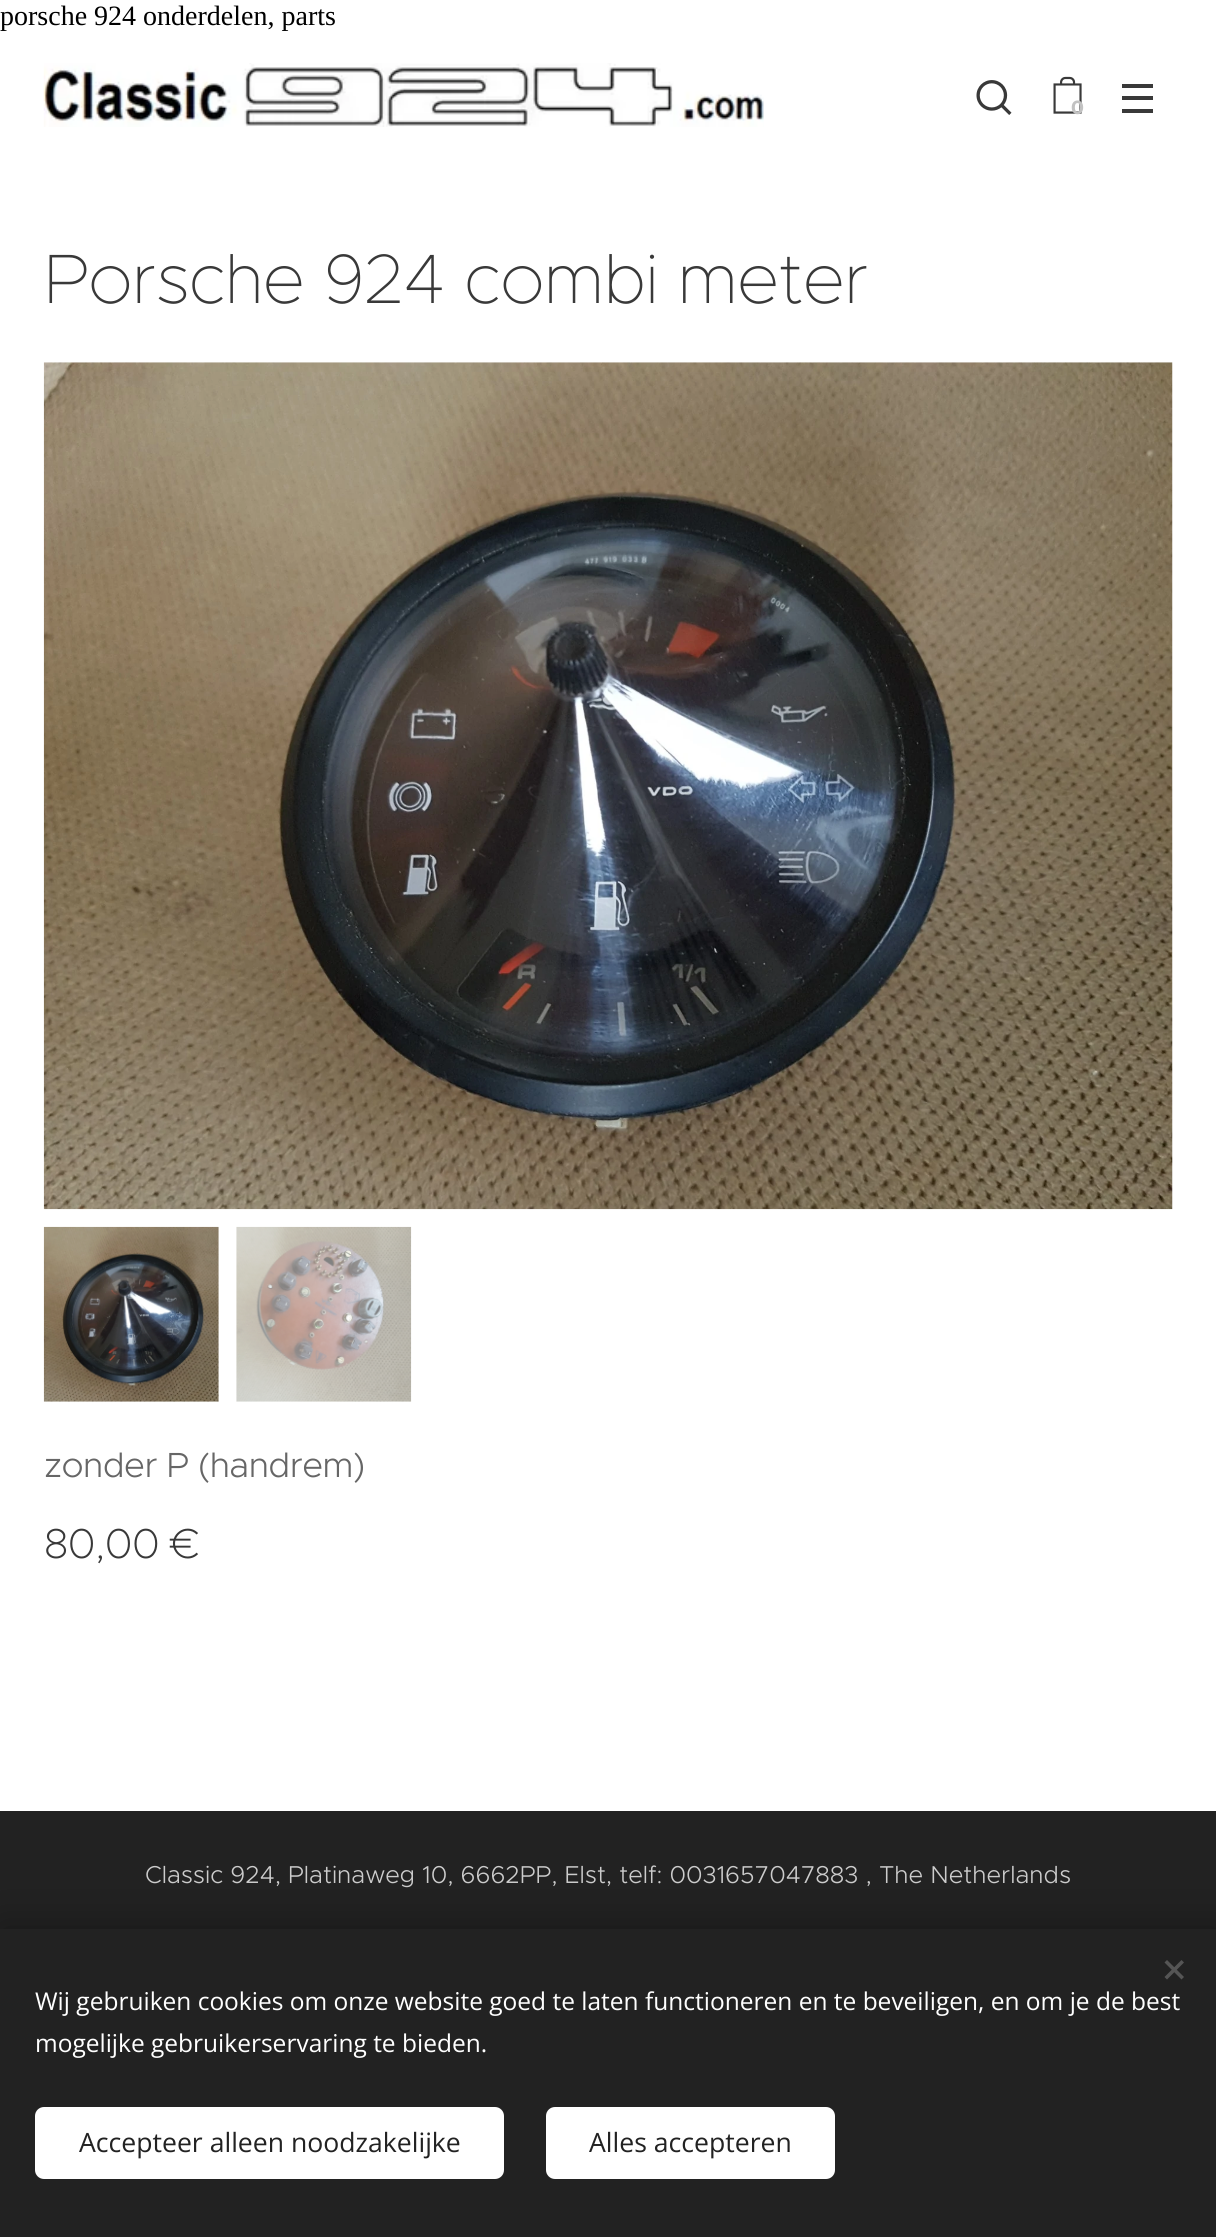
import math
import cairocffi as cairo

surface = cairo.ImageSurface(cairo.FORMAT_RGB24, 1216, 2237)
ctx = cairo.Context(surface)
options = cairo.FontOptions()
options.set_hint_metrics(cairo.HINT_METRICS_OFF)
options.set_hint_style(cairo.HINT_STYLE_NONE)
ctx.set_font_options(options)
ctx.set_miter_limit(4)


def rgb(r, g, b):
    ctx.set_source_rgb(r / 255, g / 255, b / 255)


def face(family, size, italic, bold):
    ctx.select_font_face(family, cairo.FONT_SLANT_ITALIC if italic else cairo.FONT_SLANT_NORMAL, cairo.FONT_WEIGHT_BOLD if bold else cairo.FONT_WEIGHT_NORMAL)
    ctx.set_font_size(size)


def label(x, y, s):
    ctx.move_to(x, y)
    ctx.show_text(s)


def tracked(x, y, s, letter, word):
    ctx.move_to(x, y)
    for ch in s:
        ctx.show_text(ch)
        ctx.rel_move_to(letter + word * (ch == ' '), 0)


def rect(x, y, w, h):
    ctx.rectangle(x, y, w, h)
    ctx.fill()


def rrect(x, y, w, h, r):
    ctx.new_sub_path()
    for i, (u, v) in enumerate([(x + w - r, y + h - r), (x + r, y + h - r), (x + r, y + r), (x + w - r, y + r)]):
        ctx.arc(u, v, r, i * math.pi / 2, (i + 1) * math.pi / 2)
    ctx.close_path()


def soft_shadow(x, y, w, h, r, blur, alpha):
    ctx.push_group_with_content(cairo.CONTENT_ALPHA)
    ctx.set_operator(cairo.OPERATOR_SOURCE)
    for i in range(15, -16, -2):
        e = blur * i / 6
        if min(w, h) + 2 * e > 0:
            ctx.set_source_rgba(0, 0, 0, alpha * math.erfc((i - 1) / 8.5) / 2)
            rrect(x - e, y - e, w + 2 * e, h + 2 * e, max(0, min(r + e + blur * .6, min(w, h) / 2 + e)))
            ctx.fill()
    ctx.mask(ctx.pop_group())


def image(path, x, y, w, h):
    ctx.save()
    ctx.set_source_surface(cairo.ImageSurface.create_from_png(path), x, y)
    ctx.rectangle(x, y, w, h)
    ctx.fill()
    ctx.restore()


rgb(255, 255, 255)
ctx.paint()
face('Liberation Serif', 28, 0, 0)
rgb(0, 0, 0)
label(0, 25, 'porsche 924 onderdelen, parts')
image('image0.png', 43, 63, 721, 64)
image('image1.png', 976, 80, 36, 35)
image('image2.png', 1053, 76, 29, 38)
face('Montserrat', 19, 0, 1)
rgb(194, 194, 194)
label(1071, 114, '0')
rgb(57, 57, 57)
rect(1122, 96, 31, 4)
rect(1122, 84, 31, 4)
rect(1122, 109, 31, 4)
face('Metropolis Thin', 70, 0, 0)
tracked(44, 303, 'Porsche 924 combi meter', -0.55, 0)
image('image3.png', 43, 362, 1130, 848)
image('image4.png', 43, 1226, 176, 176)
image('image5.png', 236, 1226, 176, 176)
face('Metropolis Light', 35, 0, 0)
rgb(102, 102, 102)
tracked(44, 1477, 'zonder P (handrem)', -0.55, 0)
face('Metropolis ExtraLight', 42, 0, 0)
rgb(57, 57, 57)
tracked(44, 1558, '80,00 €', -0.55, 0)
rgb(34, 34, 34)
rect(0, 1811, 1216, 118)
face('Metropolis Light', 24.5, 0, 0)
rgb(204, 204, 204)
label(145, 1883, 'Classic 924, Platinaweg 10, 6662PP, Elst, telf: 0031657047883 , The Netherlands')
rgb(0, 0, 0)
soft_shadow(0, 1929, 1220, 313, 0, 22, 0.33)
rgb(34, 34, 34)
rect(0, 1929, 1216, 308)
rgb(85, 85, 85)
ctx.new_path()
ctx.move_to(1164.5, 1977)
ctx.line_to(1181.5, 1960)
ctx.line_to(1184, 1962.5)
ctx.line_to(1167, 1979.5)
ctx.close_path()
ctx.fill()
ctx.new_path()
ctx.move_to(1167, 1960)
ctx.line_to(1184, 1977)
ctx.line_to(1181.5, 1979.5)
ctx.line_to(1164.5, 1962.5)
ctx.close_path()
ctx.fill()
face('Open Sans', 24.5, 0, 0)
rgb(255, 255, 255)
label(35, 2010, 'Wij gebruiken cookies om onze website goed te laten functioneren en te beveiligen, en om je de best')
label(35, 2052, 'mogelijke gebruikerservaring te bieden.')
rrect(35, 2107, 469, 72, 9)
ctx.fill()
face('Open Sans', 26.6, 0, 0)
rgb(34, 34, 34)
label(79, 2152, 'Accepteer alleen noodzakelijke')
rgb(255, 255, 255)
rrect(546, 2107, 289, 72, 9)
ctx.fill()
rgb(34, 34, 34)
label(589, 2152, 'Alles accepteren')
surface.write_to_png('render.png')
